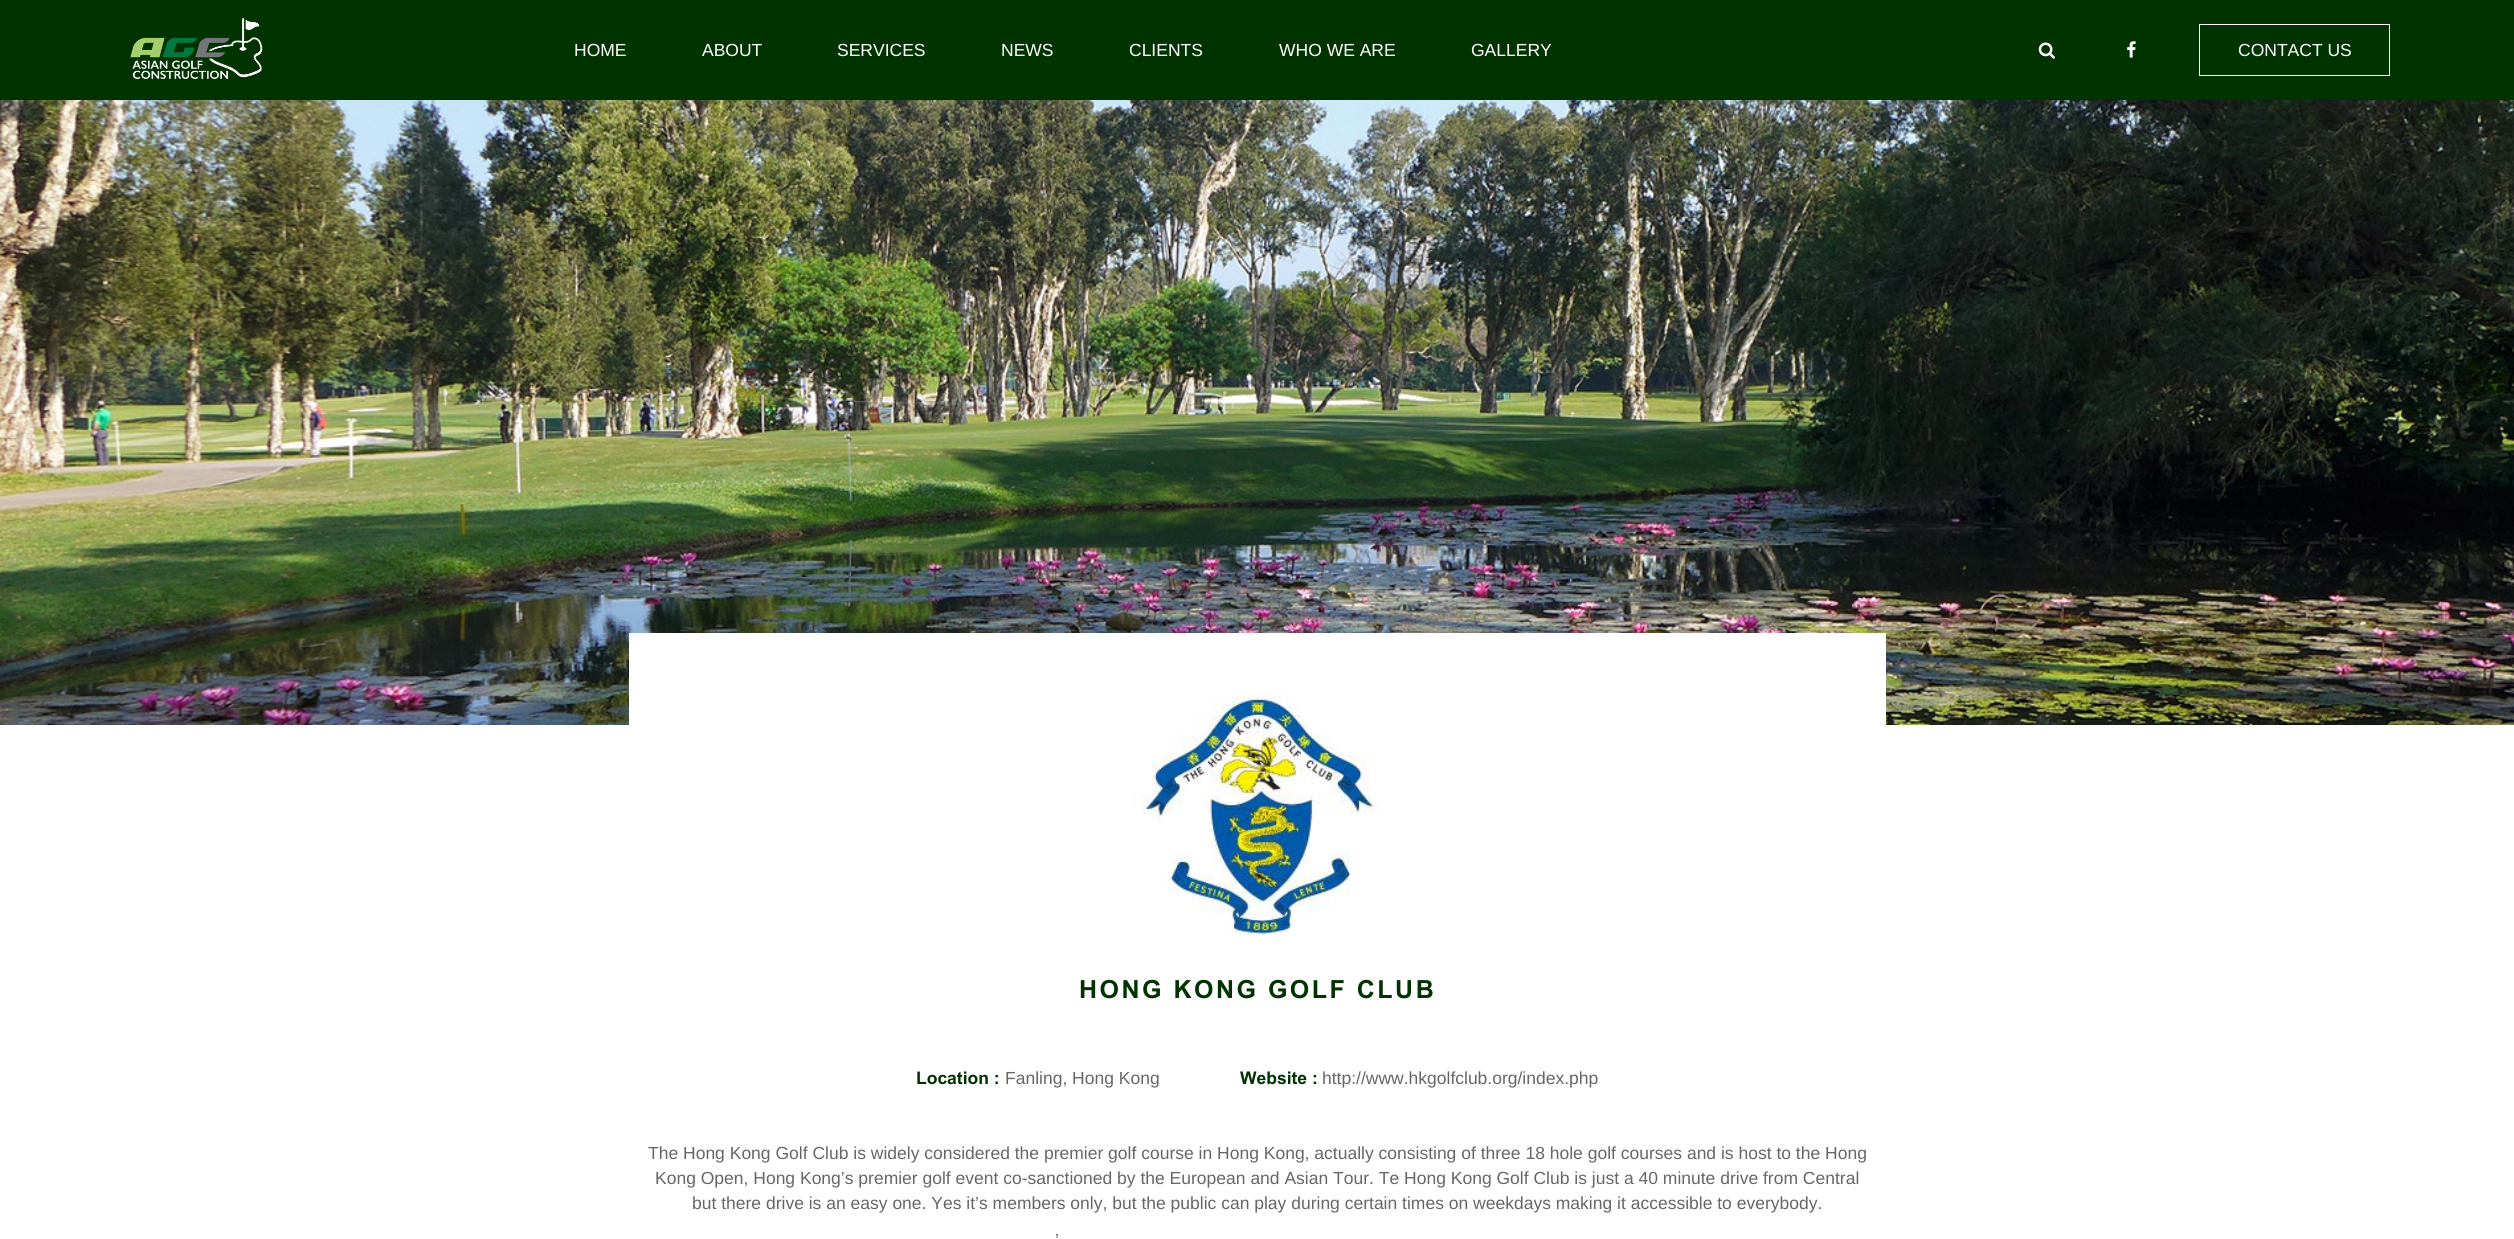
import math
import cairocffi as cairo

surface = cairo.ImageSurface(cairo.FORMAT_RGB24, 2514, 1239)
ctx = cairo.Context(surface)
options = cairo.FontOptions()
options.set_hint_metrics(cairo.HINT_METRICS_OFF)
options.set_hint_style(cairo.HINT_STYLE_NONE)
ctx.set_font_options(options)
ctx.set_miter_limit(4)


def rgb(r, g, b):
    ctx.set_source_rgb(r / 255, g / 255, b / 255)


def face(family, size, italic, bold):
    ctx.select_font_face(family, cairo.FONT_SLANT_ITALIC if italic else cairo.FONT_SLANT_NORMAL, cairo.FONT_WEIGHT_BOLD if bold else cairo.FONT_WEIGHT_NORMAL)
    ctx.set_font_size(size)


def label(x, y, s):
    ctx.move_to(x, y)
    ctx.show_text(s)


def tracked(x, y, s, letter, word):
    ctx.move_to(x, y)
    for ch in s:
        ctx.show_text(ch)
        ctx.rel_move_to(letter + word * (ch == ' '), 0)


def rect(x, y, w, h):
    ctx.rectangle(x, y, w, h)
    ctx.fill()


def image(path, x, y, w, h):
    ctx.save()
    ctx.set_source_surface(cairo.ImageSurface.create_from_png(path), x, y)
    ctx.rectangle(x, y, w, h)
    ctx.fill()
    ctx.restore()


rgb(255, 255, 255)
ctx.paint()
rgb(0, 51, 0)
rect(0, 0, 2514, 100)
image('image0.png', 130, 18, 133, 62)
face('Liberation Sans', 17.5, 0, 0)
rgb(255, 255, 255)
label(574, 56, 'HOME')
label(702, 56, 'ABOUT')
label(837, 56, 'SERVICES')
label(1001, 56, 'NEWS')
label(1129, 56, 'CLIENTS')
label(1279, 56, 'WHO WE ARE')
label(1471, 56, 'GALLERY')
image('image1.png', 2038, 42, 17, 17)
image('image2.png', 2127, 41, 9, 17)
ctx.rectangle(2199.5, 24.5, 190, 51)
ctx.set_line_width(1)
ctx.stroke()
label(2238, 56, 'CONTACT US')
image('image3.png', 0, 100, 2514, 625)
rect(629, 633, 1257, 92)
image('image4.png', 1132, 695, 248, 242)
face('Arial', 25, 0, 1)
rgb(0, 51, 0)
tracked(1079, 998, 'HONG KONG GOLF CLUB', 2.5, 0)
face('Arial', 17.5, 0, 1)
label(916, 1084, 'Location :')
face('Liberation Sans', 17.5, 0, 0)
rgb(102, 102, 102)
label(1005, 1084, 'Fanling, Hong Kong')
face('Arial', 17.5, 0, 1)
rgb(0, 51, 0)
label(1240, 1084, 'Website :')
face('Liberation Sans', 17.5, 0, 0)
rgb(102, 102, 102)
label(1322, 1084, 'http://www.hkgolfclub.org/index.php')
label(648, 1159, 'The Hong Kong Golf Club is widely considered the premier golf course in Hong Kong, actually consisting of three 18 hole golf courses and is host to the Hong')
label(655, 1184, 'Kong Open, Hong Kong’s premier golf event co-sanctioned by the European and Asian Tour. Te Hong Kong Golf Club is just a 40 minute drive from Central')
label(692, 1209, 'but there drive is an easy one. Yes it’s members only, but the public can play during certain times on weekdays making it accessible to everybody.')
label(1055, 1246, '’')
surface.write_to_png('render.png')
